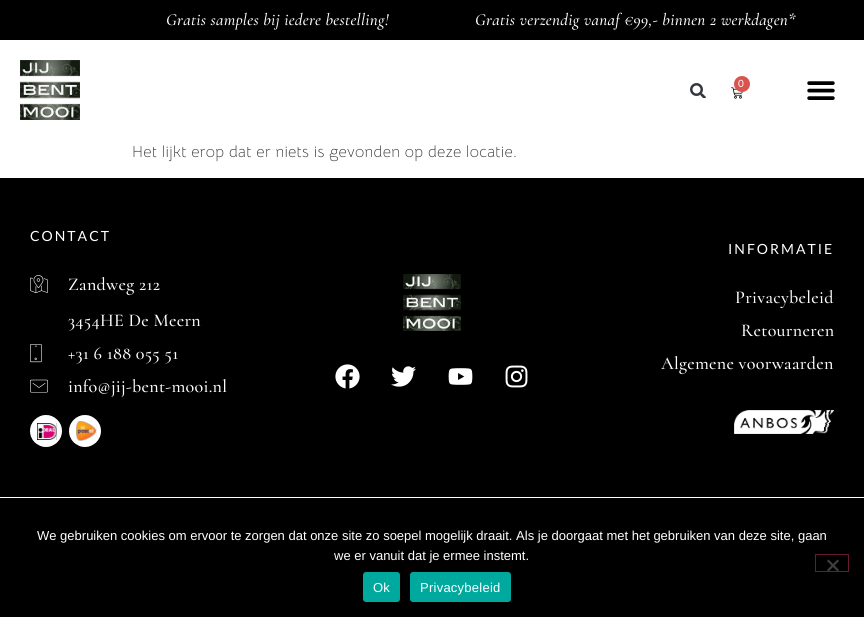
import math
import cairocffi as cairo

surface = cairo.ImageSurface(cairo.FORMAT_RGB24, 864, 617)
ctx = cairo.Context(surface)
options = cairo.FontOptions()
options.set_hint_metrics(cairo.HINT_METRICS_OFF)
options.set_hint_style(cairo.HINT_STYLE_NONE)
ctx.set_font_options(options)
ctx.set_miter_limit(4)


def rgb(r, g, b):
    ctx.set_source_rgb(r / 255, g / 255, b / 255)


def face(family, size, italic, bold):
    ctx.select_font_face(family, cairo.FONT_SLANT_ITALIC if italic else cairo.FONT_SLANT_NORMAL, cairo.FONT_WEIGHT_BOLD if bold else cairo.FONT_WEIGHT_NORMAL)
    ctx.set_font_size(size)


def label(x, y, s):
    ctx.move_to(x, y)
    ctx.show_text(s)


def tracked(x, y, s, letter, word):
    ctx.move_to(x, y)
    for ch in s:
        ctx.show_text(ch)
        ctx.rel_move_to(letter + word * (ch == ' '), 0)


def rect(x, y, w, h):
    ctx.rectangle(x, y, w, h)
    ctx.fill()


def rrect(x, y, w, h, r):
    ctx.new_sub_path()
    for i, (u, v) in enumerate([(x + w - r, y + h - r), (x + r, y + h - r), (x + r, y + r), (x + w - r, y + r)]):
        ctx.arc(u, v, r, i * math.pi / 2, (i + 1) * math.pi / 2)
    ctx.close_path()


def image(path, x, y, w, h):
    ctx.save()
    ctx.set_source_surface(cairo.ImageSurface.create_from_png(path), x, y)
    ctx.rectangle(x, y, w, h)
    ctx.fill()
    ctx.restore()


rgb(255, 255, 255)
ctx.paint()
rgb(0, 0, 0)
rect(0, 0, 864, 40)
face('Cormorant Medium', 17, 1, 0)
rgb(255, 255, 255)
tracked(166, 25, 'Gratis samples bij iedere bestelling!', 0.3, 0)
tracked(475, 25, 'Gratis verzendig vanaf €99,- binnen 2 werkdagen*', 0.3, 0)
image('image0.png', 20, 60, 60, 60)
image('image1.png', 690, 83, 16, 15)
image('image2.png', 731, 87, 12, 12)
rgb(217, 83, 79)
ctx.arc(742, 84, 8, 0, 2 * math.pi)
ctx.fill()
face('Lato', 10, 0, 0)
rgb(255, 255, 255)
tracked(738, 87, '0', 3, 0)
image('image3.png', 807, 81, 28, 19)
face('Bellota Text Light', 16, 0, 0)
rgb(51, 51, 51)
tracked(132, 157, 'Het lijkt erop dat er niets is gevonden op deze locatie.', 0.3, 0)
rgb(0, 0, 0)
rect(0, 178, 864, 319)
face('Lato', 14, 0, 0)
rgb(255, 255, 255)
tracked(30, 241, 'CONTACT', 2, 0)
image('image4.png', 30, 275, 18, 18)
face('Cormorant Medium', 18, 0, 0)
tracked(68, 290, 'Zandweg 212', 0.3, 0)
tracked(68, 326, '3454HE De Meern', 0.3, 0)
image('image5.png', 30, 344, 12, 19)
tracked(68, 359, '+31 6 188 055 51', 0.3, 0)
image('image6.png', 30, 379, 18, 14)
tracked(68, 392, 'info@jij-bent-mooi.nl', 0.3, 0)
image('image7.png', 30, 415, 32, 32)
image('image8.png', 69, 415, 32, 32)
image('image9.png', 403, 274, 58, 57)
image('image10.png', 335, 364, 25, 25)
image('image11.png', 391, 366, 25, 21)
image('image12.png', 448, 368, 25, 17)
image('image13.png', 505, 365, 23, 23)
face('Lato', 14, 0, 0)
tracked(728, 254, 'INFORMATIE', 2, 0)
face('Cormorant Medium', 18, 0, 0)
tracked(735, 303, 'Privacybeleid', 0.3, 0)
tracked(741, 336, 'Retourneren', 0.3, 0)
tracked(661, 369, 'Algemene voorwaarden', 0.3, 0)
image('image14.png', 734, 410, 100, 24)
rgb(0, 0, 0)
rect(0, 498, 864, 119)
face('Liberation Sans', 13, 0, 0)
rgb(255, 255, 255)
label(37, 540, 'We gebruiken cookies om ervoor te zorgen dat onze site zo soepel mogelijk draait. Als je doorgaat met het gebruiken van deze site, gaan')
label(334, 560, 'we er vanuit dat je ermee instemt.')
ctx.rectangle(815.5, 554.5, 33, 17)
rgb(102, 26, 51)
ctx.set_line_width(1)
ctx.stroke()
rgb(64, 64, 64)
ctx.new_path()
ctx.move_to(837.5, 559.5)
ctx.line_to(839, 561)
ctx.line_to(828.5, 571.5)
ctx.line_to(827, 570)
ctx.close_path()
ctx.fill()
ctx.new_path()
ctx.move_to(827, 561)
ctx.line_to(828.5, 559.5)
ctx.line_to(839, 570)
ctx.line_to(837.5, 571.5)
ctx.close_path()
ctx.fill()
rgb(0, 169, 157)
rrect(363, 572, 37, 30, 3)
ctx.fill()
rgb(255, 255, 255)
tracked(373, 592, 'Ok', 0.25, 0)
rgb(0, 169, 157)
rrect(410, 572, 101, 30, 3)
ctx.fill()
rgb(255, 255, 255)
tracked(420, 592, 'Privacybeleid', 0.25, 0)
surface.write_to_png('render.png')
